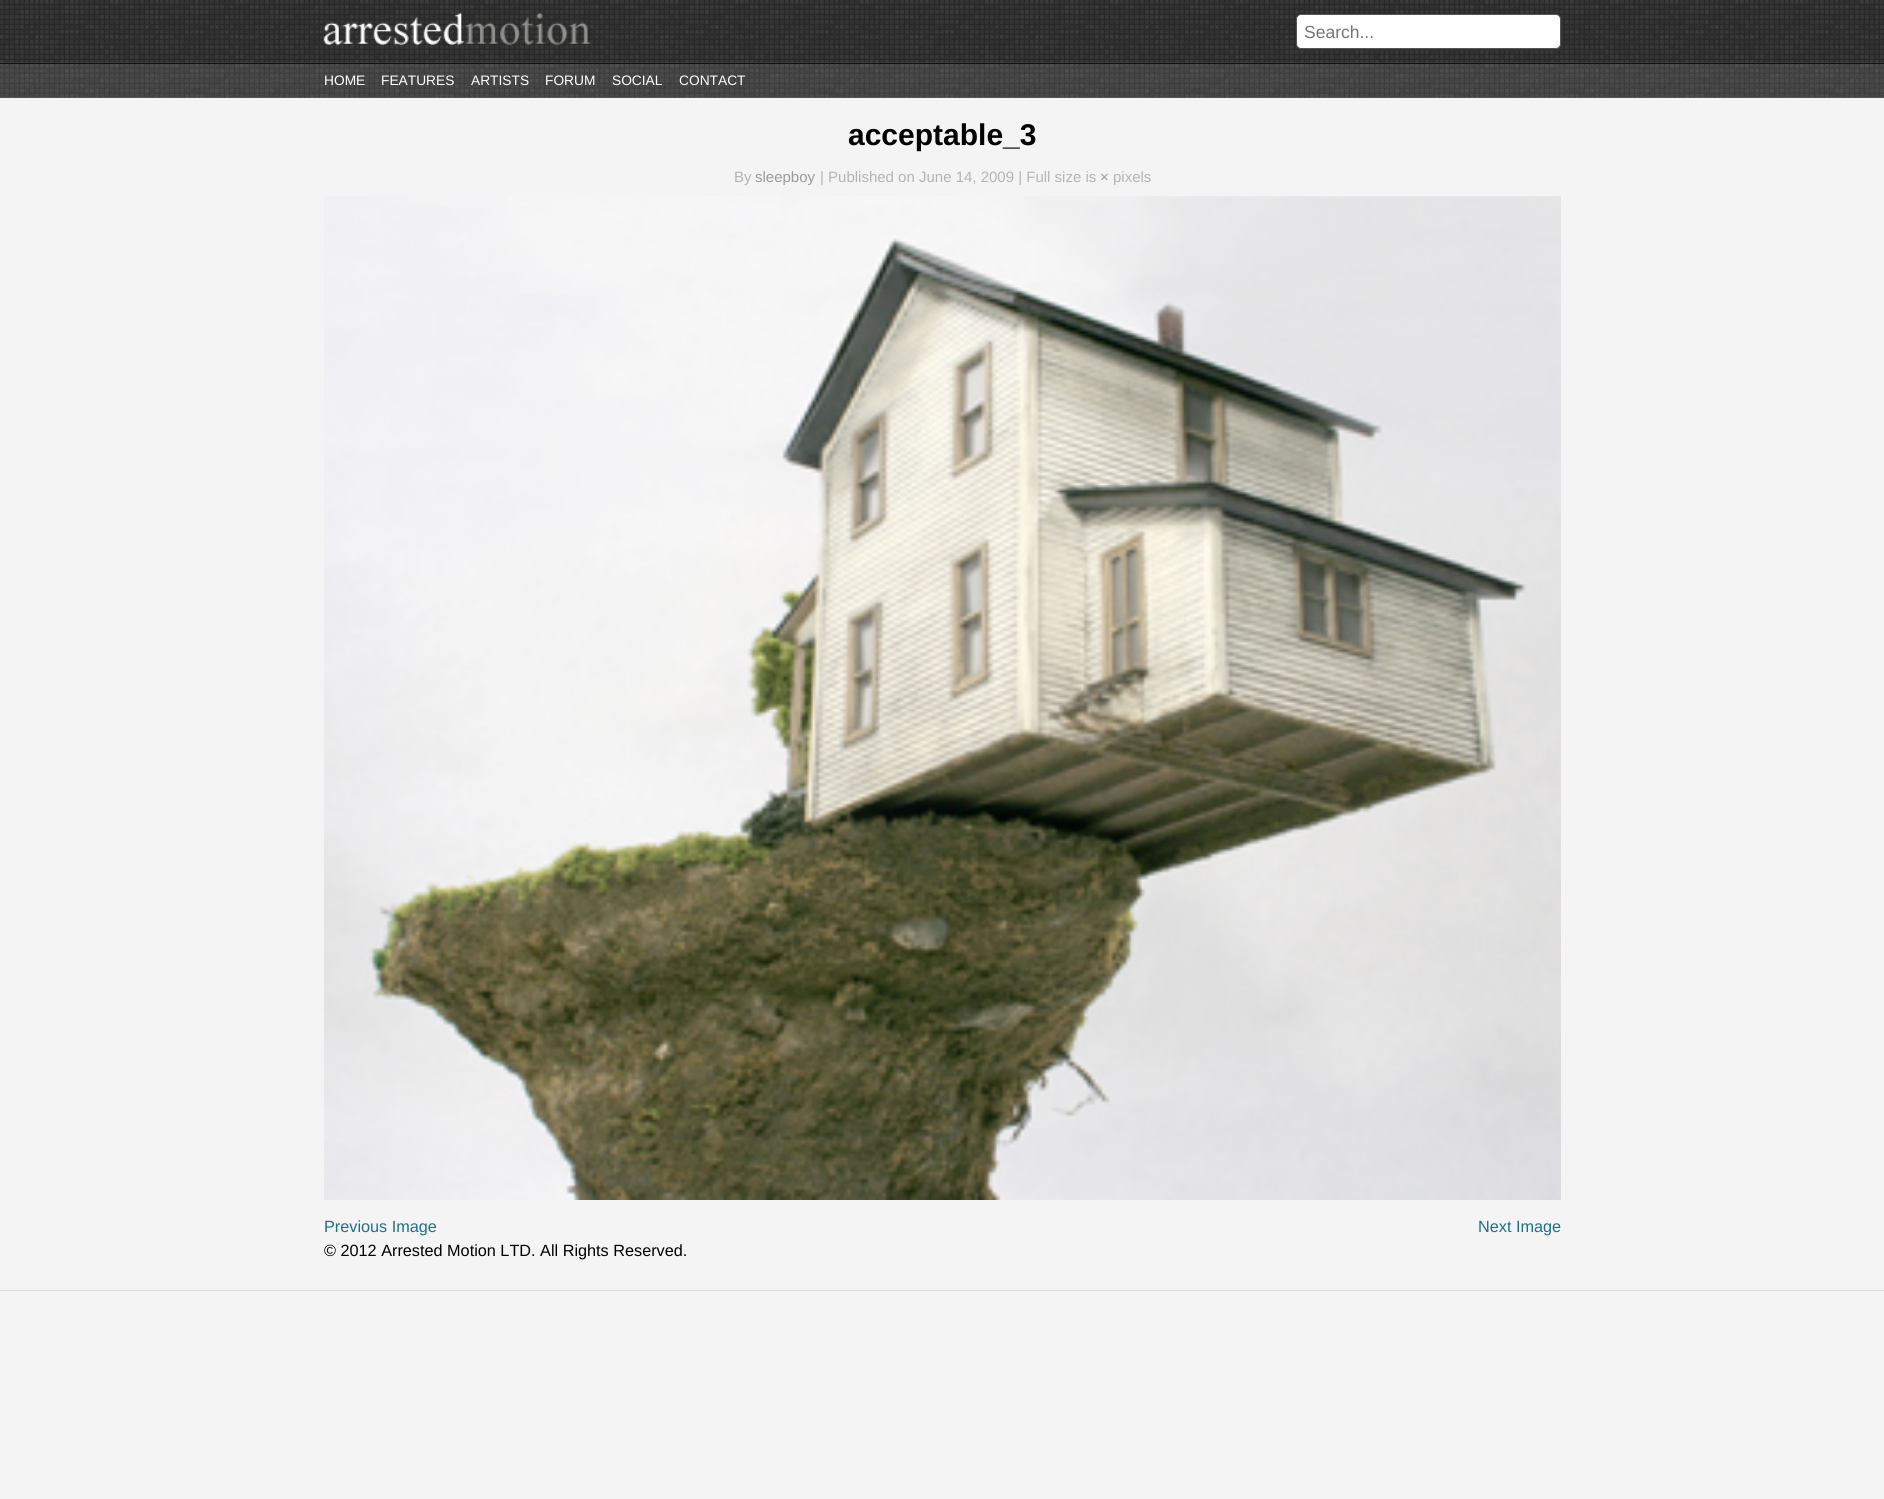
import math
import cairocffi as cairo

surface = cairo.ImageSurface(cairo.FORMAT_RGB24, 1884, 1499)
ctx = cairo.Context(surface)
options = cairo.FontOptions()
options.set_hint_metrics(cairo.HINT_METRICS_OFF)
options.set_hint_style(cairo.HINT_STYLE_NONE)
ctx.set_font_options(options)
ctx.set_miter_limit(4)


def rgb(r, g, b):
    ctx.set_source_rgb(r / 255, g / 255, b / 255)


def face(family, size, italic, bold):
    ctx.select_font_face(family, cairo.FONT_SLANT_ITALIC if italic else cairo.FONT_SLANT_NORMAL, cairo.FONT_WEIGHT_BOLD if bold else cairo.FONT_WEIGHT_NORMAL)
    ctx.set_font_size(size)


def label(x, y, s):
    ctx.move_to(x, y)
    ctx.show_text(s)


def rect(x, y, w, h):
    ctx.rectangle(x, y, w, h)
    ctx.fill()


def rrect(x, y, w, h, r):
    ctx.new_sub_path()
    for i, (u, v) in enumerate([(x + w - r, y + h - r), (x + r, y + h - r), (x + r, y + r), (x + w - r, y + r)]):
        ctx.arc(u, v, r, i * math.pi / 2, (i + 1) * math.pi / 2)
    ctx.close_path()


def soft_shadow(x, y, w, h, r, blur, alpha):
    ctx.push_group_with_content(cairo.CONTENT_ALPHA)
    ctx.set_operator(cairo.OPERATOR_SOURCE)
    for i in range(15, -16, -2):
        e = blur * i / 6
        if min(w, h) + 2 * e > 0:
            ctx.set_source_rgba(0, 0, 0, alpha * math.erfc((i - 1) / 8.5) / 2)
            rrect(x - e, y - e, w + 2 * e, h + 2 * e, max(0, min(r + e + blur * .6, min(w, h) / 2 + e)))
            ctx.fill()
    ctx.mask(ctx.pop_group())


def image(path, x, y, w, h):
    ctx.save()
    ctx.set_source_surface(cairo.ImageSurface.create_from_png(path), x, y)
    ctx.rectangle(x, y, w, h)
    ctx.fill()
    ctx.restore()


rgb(244, 244, 244)
ctx.paint()
image('image0.png', 0, 0, 1884, 63)
image('image1.png', 323, 12, 268, 33)
rgb(51, 51, 51)
soft_shadow(1298, 15, 265, 35, 5, 0.5, 1)
rgb(255, 255, 255)
rrect(1296.5, 14.5, 264, 34, 4.5)
ctx.fill_preserve()
rgb(85, 85, 85)
ctx.set_line_width(1)
ctx.stroke()
face('Liberation Sans', 17.5, 0, 0)
rgb(117, 117, 117)
label(1304, 38, 'Search...')
rgb(102, 102, 102)
rect(0, 97, 1884, 1)
image('image2.png', 0, 62, 1884, 36)
rgb(17, 17, 17)
rect(0, 63, 1884, 1)
face('Liberation Sans', 13.75, 0, 0)
rgb(255, 255, 255)
label(324, 85, 'HOME')
label(381, 85, 'FEATURES')
label(471, 85, 'ARTISTS')
label(545, 85, 'FORUM')
label(612, 85, 'SOCIAL')
label(679, 85, 'CONTACT')
face('Liberation Sans', 30, 0, 1)
rgb(0, 0, 0)
label(848, 145, 'acceptable_3')
face('Liberation Sans', 15, 0, 0)
rgb(180, 181, 176)
label(734, 182, 'By')
rgb(155, 155, 155)
label(755, 182, 'sleepboy')
rgb(180, 181, 176)
label(820, 182, '| Published on June 14, 2009 | Full size is')
rgb(155, 155, 155)
label(1100, 182, '×')
rgb(180, 181, 176)
label(1113, 182, 'pixels')
image('image3.png', 324, 196, 1237, 1004)
face('Liberation Sans', 16.25, 0, 0)
rgb(29, 113, 143)
label(324, 1232, 'Previous Image')
label(1478, 1232, 'Next Image')
rgb(0, 0, 0)
label(324, 1256, '© 2012 Arrested Motion LTD. All Rights Reserved.')
rgb(222, 222, 222)
rect(0, 1290, 1884, 1)
surface.write_to_png('render.png')
